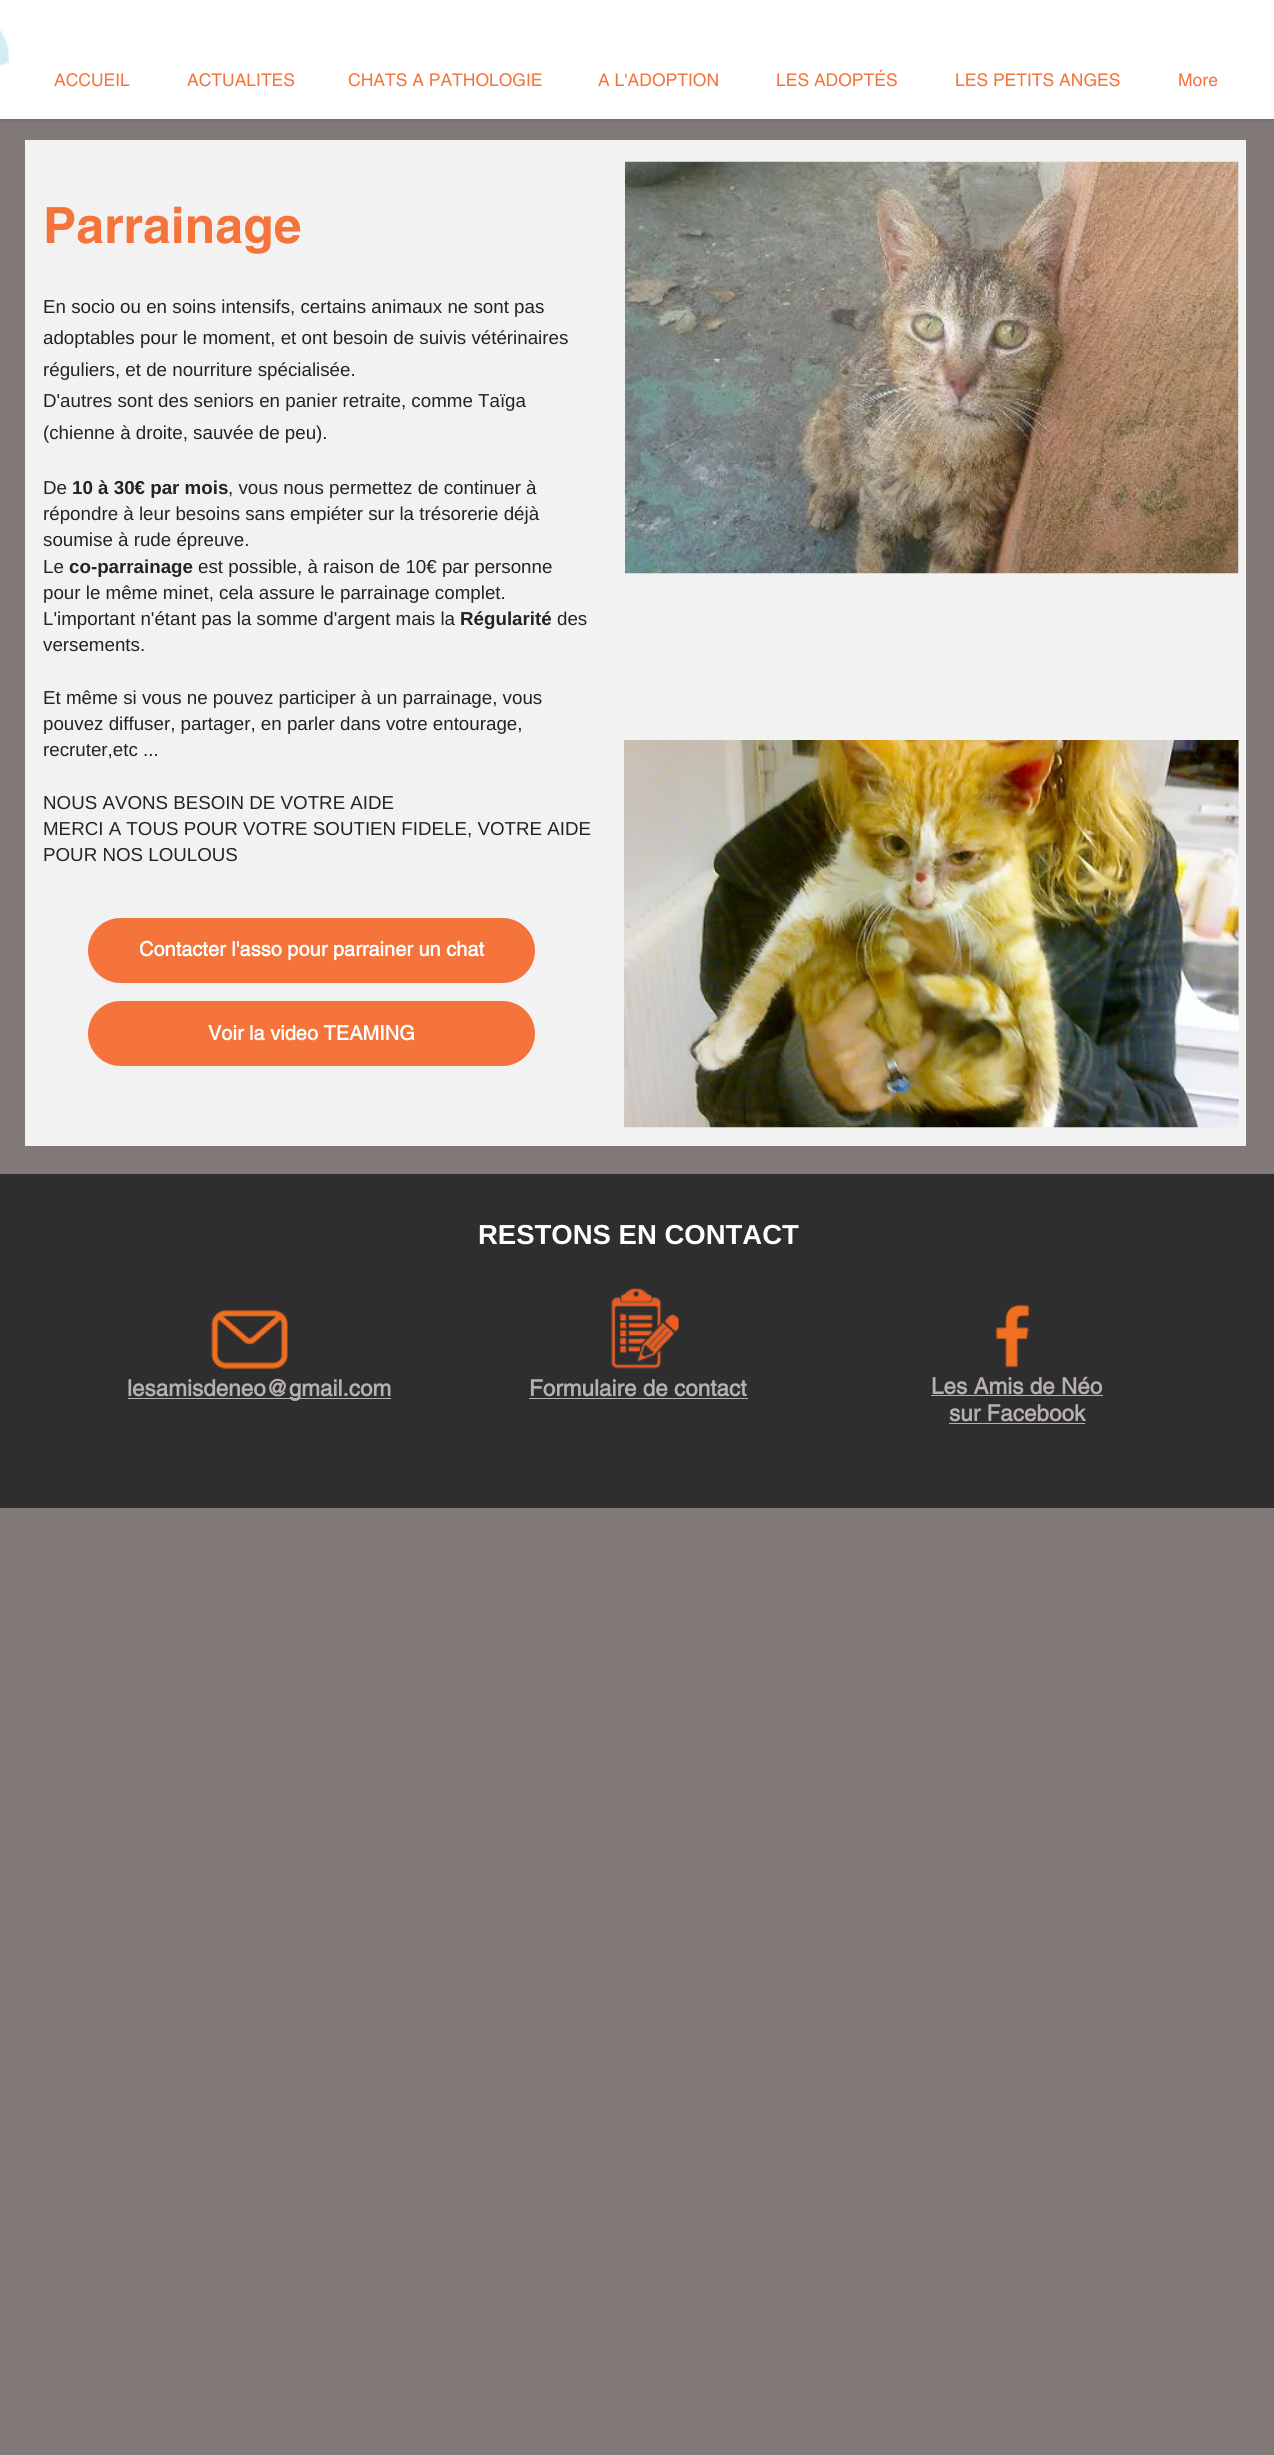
import math
import cairocffi as cairo

surface = cairo.ImageSurface(cairo.FORMAT_RGB24, 1274, 2455)
ctx = cairo.Context(surface)
options = cairo.FontOptions()
options.set_hint_metrics(cairo.HINT_METRICS_OFF)
options.set_hint_style(cairo.HINT_STYLE_NONE)
ctx.set_font_options(options)
ctx.set_miter_limit(4)


def rgb(r, g, b):
    ctx.set_source_rgb(r / 255, g / 255, b / 255)


def face(family, size, italic, bold):
    ctx.select_font_face(family, cairo.FONT_SLANT_ITALIC if italic else cairo.FONT_SLANT_NORMAL, cairo.FONT_WEIGHT_BOLD if bold else cairo.FONT_WEIGHT_NORMAL)
    ctx.set_font_size(size)


def label(x, y, s):
    ctx.move_to(x, y)
    ctx.show_text(s)


def rect(x, y, w, h):
    ctx.rectangle(x, y, w, h)
    ctx.fill()


def rrect(x, y, w, h, r):
    ctx.new_sub_path()
    for i, (u, v) in enumerate([(x + w - r, y + h - r), (x + r, y + h - r), (x + r, y + r), (x + w - r, y + r)]):
        ctx.arc(u, v, r, i * math.pi / 2, (i + 1) * math.pi / 2)
    ctx.close_path()


def soft_shadow(x, y, w, h, r, blur, alpha):
    ctx.push_group_with_content(cairo.CONTENT_ALPHA)
    ctx.set_operator(cairo.OPERATOR_SOURCE)
    for i in range(15, -16, -2):
        e = blur * i / 6
        if min(w, h) + 2 * e > 0:
            ctx.set_source_rgba(0, 0, 0, alpha * math.erfc((i - 1) / 8.5) / 2)
            rrect(x - e, y - e, w + 2 * e, h + 2 * e, max(0, min(r + e + blur * .6, min(w, h) / 2 + e)))
            ctx.fill()
    ctx.mask(ctx.pop_group())


def image(path, x, y, w, h):
    ctx.save()
    ctx.set_source_surface(cairo.ImageSurface.create_from_png(path), x, y)
    ctx.rectangle(x, y, w, h)
    ctx.fill()
    ctx.restore()


rgb(129, 120, 120)
ctx.paint()
rgb(0, 0, 0)
soft_shadow(0, 0, 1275, 119, 0, 2, 0.2)
rgb(255, 255, 255)
rect(0, 0, 1274, 119)
image('image0.png', 0, 29, 9, 37)
face('helvetica', 17.5, 0, 0)
rgb(244, 116, 59)
label(54, 86, 'ACCUEIL')
label(187, 86, 'ACTUALITES')
label(348, 86, 'CHATS A PATHOLOGIE')
label(598, 86, 'A L\'ADOPTION')
label(776, 86, 'LES ADOPTÉS')
label(955, 86, 'LES PETITS ANGES')
label(1178, 86, 'More')
rgb(242, 242, 242)
rect(25, 140, 1221, 1006)
face('helvetica', 50, 0, 1)
rgb(244, 116, 59)
label(43, 243, 'Parrainage')
face('Liberation Sans', 18.75, 0, 0)
rgb(35, 35, 35)
label(43, 313, 'En socio ou en soins intensifs, certains animaux ne sont pas')
label(43, 344, 'adoptables pour le moment, et ont besoin de suivis vétérinaires')
label(43, 376, 'réguliers, et de nourriture spécialisée.')
label(43, 407, 'D\'autres sont des seniors en panier retraite, comme Taïga')
label(43, 439, '(chienne à droite, sauvée de peu).')
label(43, 494, 'De')
face('Liberation Sans', 18.75, 0, 1)
label(72, 494, '10 à 30€ par mois')
face('Liberation Sans', 18.75, 0, 0)
label(228, 494, ', vous nous permettez de continuer à')
label(43, 520, 'répondre à leur besoins sans empiéter sur la trésorerie déjà')
label(43, 546, 'soumise à rude épreuve.')
label(43, 573, 'Le')
face('Liberation Sans', 18.75, 0, 1)
label(69, 573, 'co-parrainage')
face('Liberation Sans', 18.75, 0, 0)
label(198, 573, 'est possible, à raison de 10€ par personne')
label(43, 599, 'pour le même minet, cela assure le parrainage complet.')
label(43, 625, 'L\'important n\'étant pas la somme d\'argent mais la')
face('Liberation Sans', 18.75, 0, 1)
label(460, 625, 'Régularité')
face('Liberation Sans', 18.75, 0, 0)
label(557, 625, 'des')
label(43, 651, 'versements.')
label(43, 704, 'Et même si vous ne pouvez participer à un parrainage, vous')
label(43, 730, 'pouvez diffuser, partager, en parler dans votre entourage,')
label(43, 756, 'recruter,etc ...')
label(43, 809, 'NOUS AVONS BESOIN DE VOTRE AIDE')
label(43, 835, 'MERCI A TOUS POUR VOTRE SOUTIEN FIDELE, VOTRE AIDE')
label(43, 861, 'POUR NOS LOULOUS')
rgb(244, 116, 59)
rrect(88, 918, 447, 65, 32.5)
ctx.fill()
face('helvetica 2', 20, 0, 1)
rgb(255, 255, 255)
label(139, 956, 'Contacter l\'asso pour parrainer un chat')
image('image1.png', 623, 740, 616, 388)
rgb(244, 116, 59)
rrect(88, 1001, 447, 65, 32.5)
ctx.fill()
rgb(255, 255, 255)
label(208, 1040, 'Voir la video TEAMING')
image('image2.png', 625, 161, 614, 413)
rgb(47, 46, 46)
rect(0, 1174, 1274, 334)
face('Liberation Sans', 27.5, 0, 1)
rgb(255, 255, 255)
label(478, 1244, 'RESTONS EN CONTACT')
image('image3.png', 211, 1309, 77, 60)
rgb(183, 176, 176)
rect(128, 1398, 263, 1)
face('helvetica 2', 22.5, 0, 1)
label(127, 1396, 'lesamisdeneo@gmail.com')
image('image4.png', 611, 1287, 68, 82)
label(529, 1396, 'Formulaire de contact')
rect(529, 1398, 219, 1)
image('image5.png', 996, 1304, 33, 64)
label(931, 1394, 'Les Amis de Néo')
rect(931, 1395, 172, 1)
label(949, 1421, 'sur Facebook')
rect(949, 1423, 136, 1)
surface.write_to_png('render.png')
